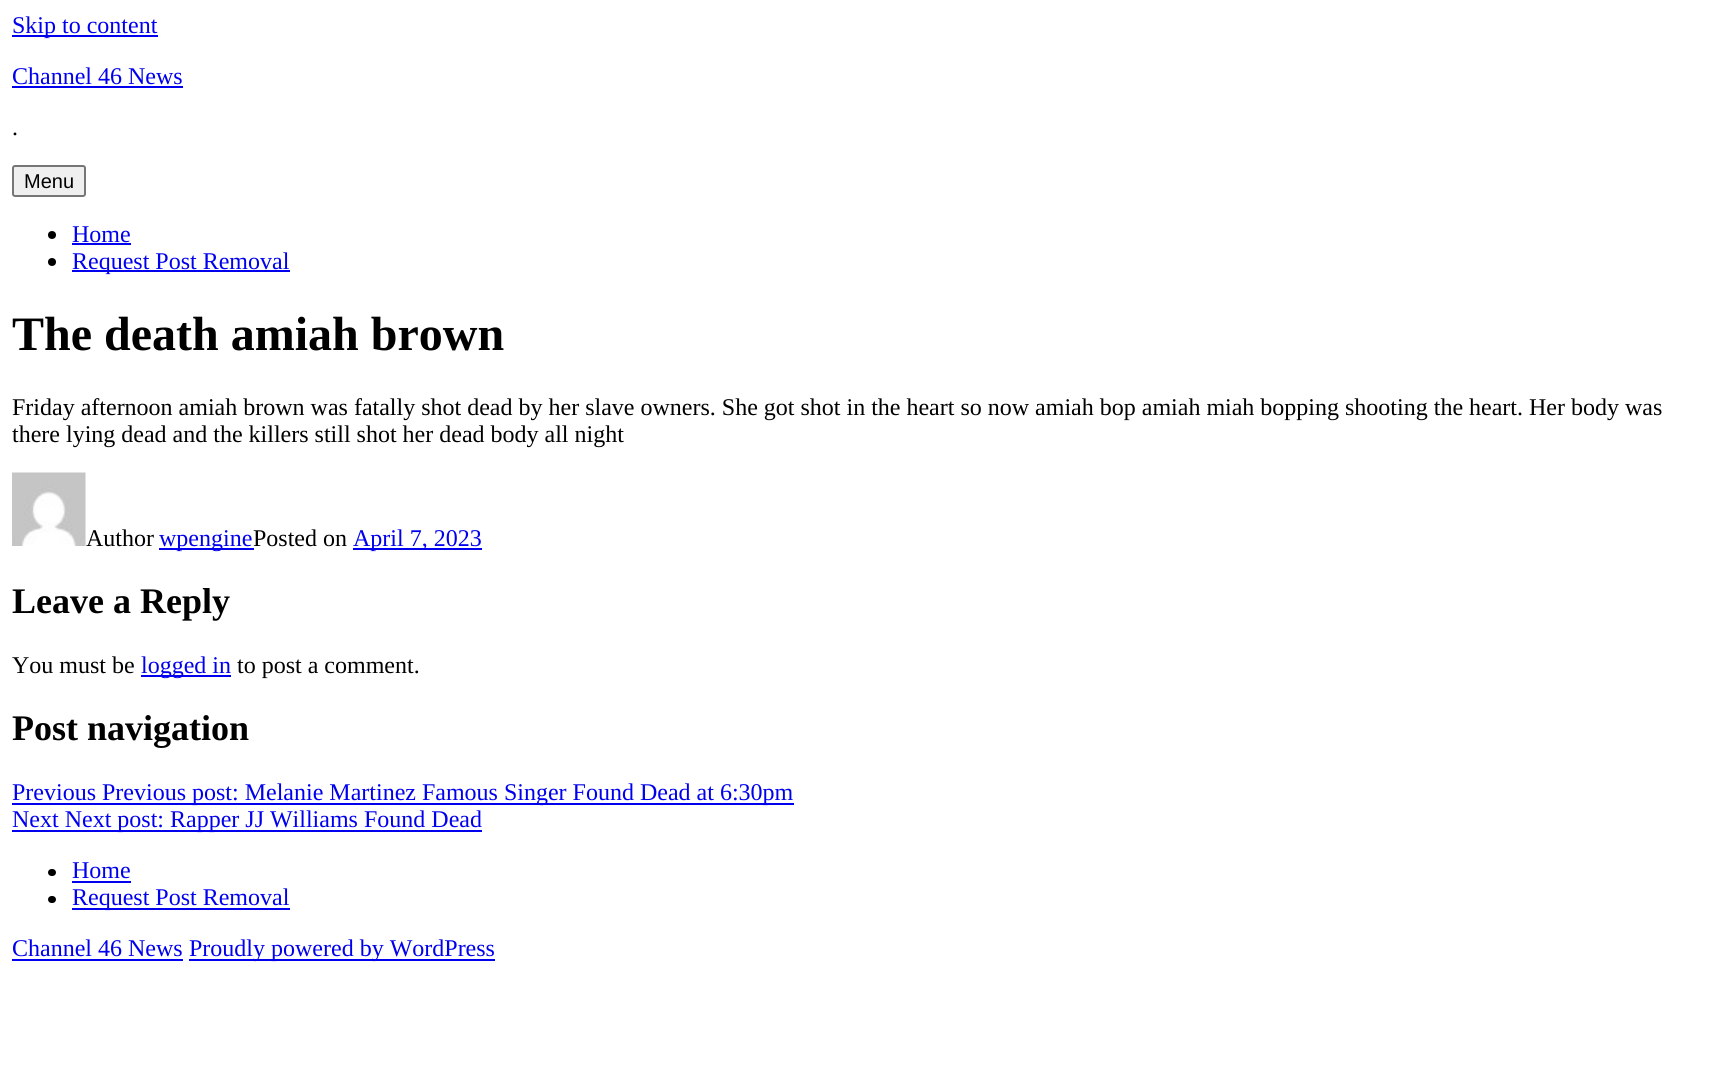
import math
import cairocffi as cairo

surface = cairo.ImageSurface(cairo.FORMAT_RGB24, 1721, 1079)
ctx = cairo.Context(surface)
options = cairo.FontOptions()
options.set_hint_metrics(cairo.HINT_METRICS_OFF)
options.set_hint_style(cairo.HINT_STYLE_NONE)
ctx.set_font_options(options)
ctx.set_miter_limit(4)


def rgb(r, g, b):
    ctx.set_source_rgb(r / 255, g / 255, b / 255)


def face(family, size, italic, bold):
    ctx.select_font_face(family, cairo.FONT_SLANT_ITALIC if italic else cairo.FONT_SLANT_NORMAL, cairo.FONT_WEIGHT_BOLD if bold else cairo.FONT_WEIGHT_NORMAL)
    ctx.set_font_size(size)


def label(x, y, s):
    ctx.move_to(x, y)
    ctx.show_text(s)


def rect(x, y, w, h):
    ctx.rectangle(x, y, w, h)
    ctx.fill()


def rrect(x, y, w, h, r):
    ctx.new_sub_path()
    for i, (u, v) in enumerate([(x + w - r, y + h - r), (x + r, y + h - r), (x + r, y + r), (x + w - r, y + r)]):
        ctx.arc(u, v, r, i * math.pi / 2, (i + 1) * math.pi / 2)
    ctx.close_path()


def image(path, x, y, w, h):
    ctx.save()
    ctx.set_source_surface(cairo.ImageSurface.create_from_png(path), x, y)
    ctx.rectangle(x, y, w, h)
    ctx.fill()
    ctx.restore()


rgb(255, 255, 255)
ctx.paint()
rgb(0, 0, 238)
rect(12, 35, 146, 2)
face('Liberation Serif', 24, 0, 0)
label(12, 33, 'Skip to content')
label(12, 84, 'Channel 46 News')
rect(12, 86, 171, 2)
rgb(0, 0, 0)
label(12, 135, '.')
rgb(239, 239, 239)
rrect(13, 166, 72, 30, 2)
ctx.fill_preserve()
rgb(118, 118, 118)
ctx.stroke()
face('Liberation Sans', 20, 0, 0)
rgb(0, 0, 0)
label(24, 188, 'Menu')
ctx.new_path()
ctx.arc(52, 235, 4, 0, 2 * math.pi)
ctx.fill()
face('Liberation Serif', 24, 0, 0)
rgb(0, 0, 238)
label(72, 242, 'Home')
rect(72, 243, 59, 2)
rgb(0, 0, 0)
ctx.new_path()
ctx.arc(52, 262, 4, 0, 2 * math.pi)
ctx.fill()
rgb(0, 0, 238)
rect(72, 270, 218, 2)
label(72, 269, 'Request Post Removal')
face('Liberation Serif', 48, 0, 1)
rgb(0, 0, 0)
label(12, 350, 'The death amiah brown')
face('Liberation Serif', 24, 0, 0)
label(12, 415, 'Friday afternoon amiah brown was fatally shot dead by her slave owners. She got shot in the heart so now amiah bop amiah miah bopping shooting the heart. Her body was')
label(12, 442, 'there lying dead and the killers still shot her dead body all night')
image('image0.png', 12, 472, 74, 74)
label(86, 546, 'Author')
rgb(0, 0, 238)
rect(159, 548, 95, 2)
label(159, 546, 'wpengine')
rgb(0, 0, 0)
label(253, 546, 'Posted on')
rgb(0, 0, 238)
rect(353, 548, 129, 2)
label(353, 546, 'April 7, 2023')
face('Liberation Serif', 36, 0, 1)
rgb(0, 0, 0)
label(12, 613, 'Leave a Reply')
face('Liberation Serif', 24, 0, 0)
label(12, 673, 'You must be')
rgb(0, 0, 238)
rect(141, 675, 90, 2)
label(141, 673, 'logged in')
rgb(0, 0, 0)
label(237, 673, 'to post a comment.')
face('Liberation Serif', 36, 0, 1)
label(12, 740, 'Post navigation')
rgb(0, 0, 238)
rect(12, 803, 782, 2)
face('Liberation Serif', 24, 0, 0)
label(12, 800, 'Previous Previous post: Melanie Martinez Famous Singer Found Dead at 6:30pm')
rect(12, 830, 470, 2)
label(12, 827, 'Next Next post: Rapper JJ Williams Found Dead')
rgb(0, 0, 0)
rrect(48, 869, 8, 7, 3.5)
ctx.fill()
rgb(0, 0, 238)
label(72, 878, 'Home')
rect(72, 881, 59, 2)
rgb(0, 0, 0)
rrect(48, 896, 8, 7, 3.5)
ctx.fill()
rgb(0, 0, 238)
rect(72, 908, 218, 2)
label(72, 905, 'Request Post Removal')
label(12, 956, 'Channel 46 News')
rect(12, 959, 171, 2)
rect(189, 959, 306, 2)
label(189, 956, 'Proudly powered by WordPress')
surface.write_to_png('render.png')
